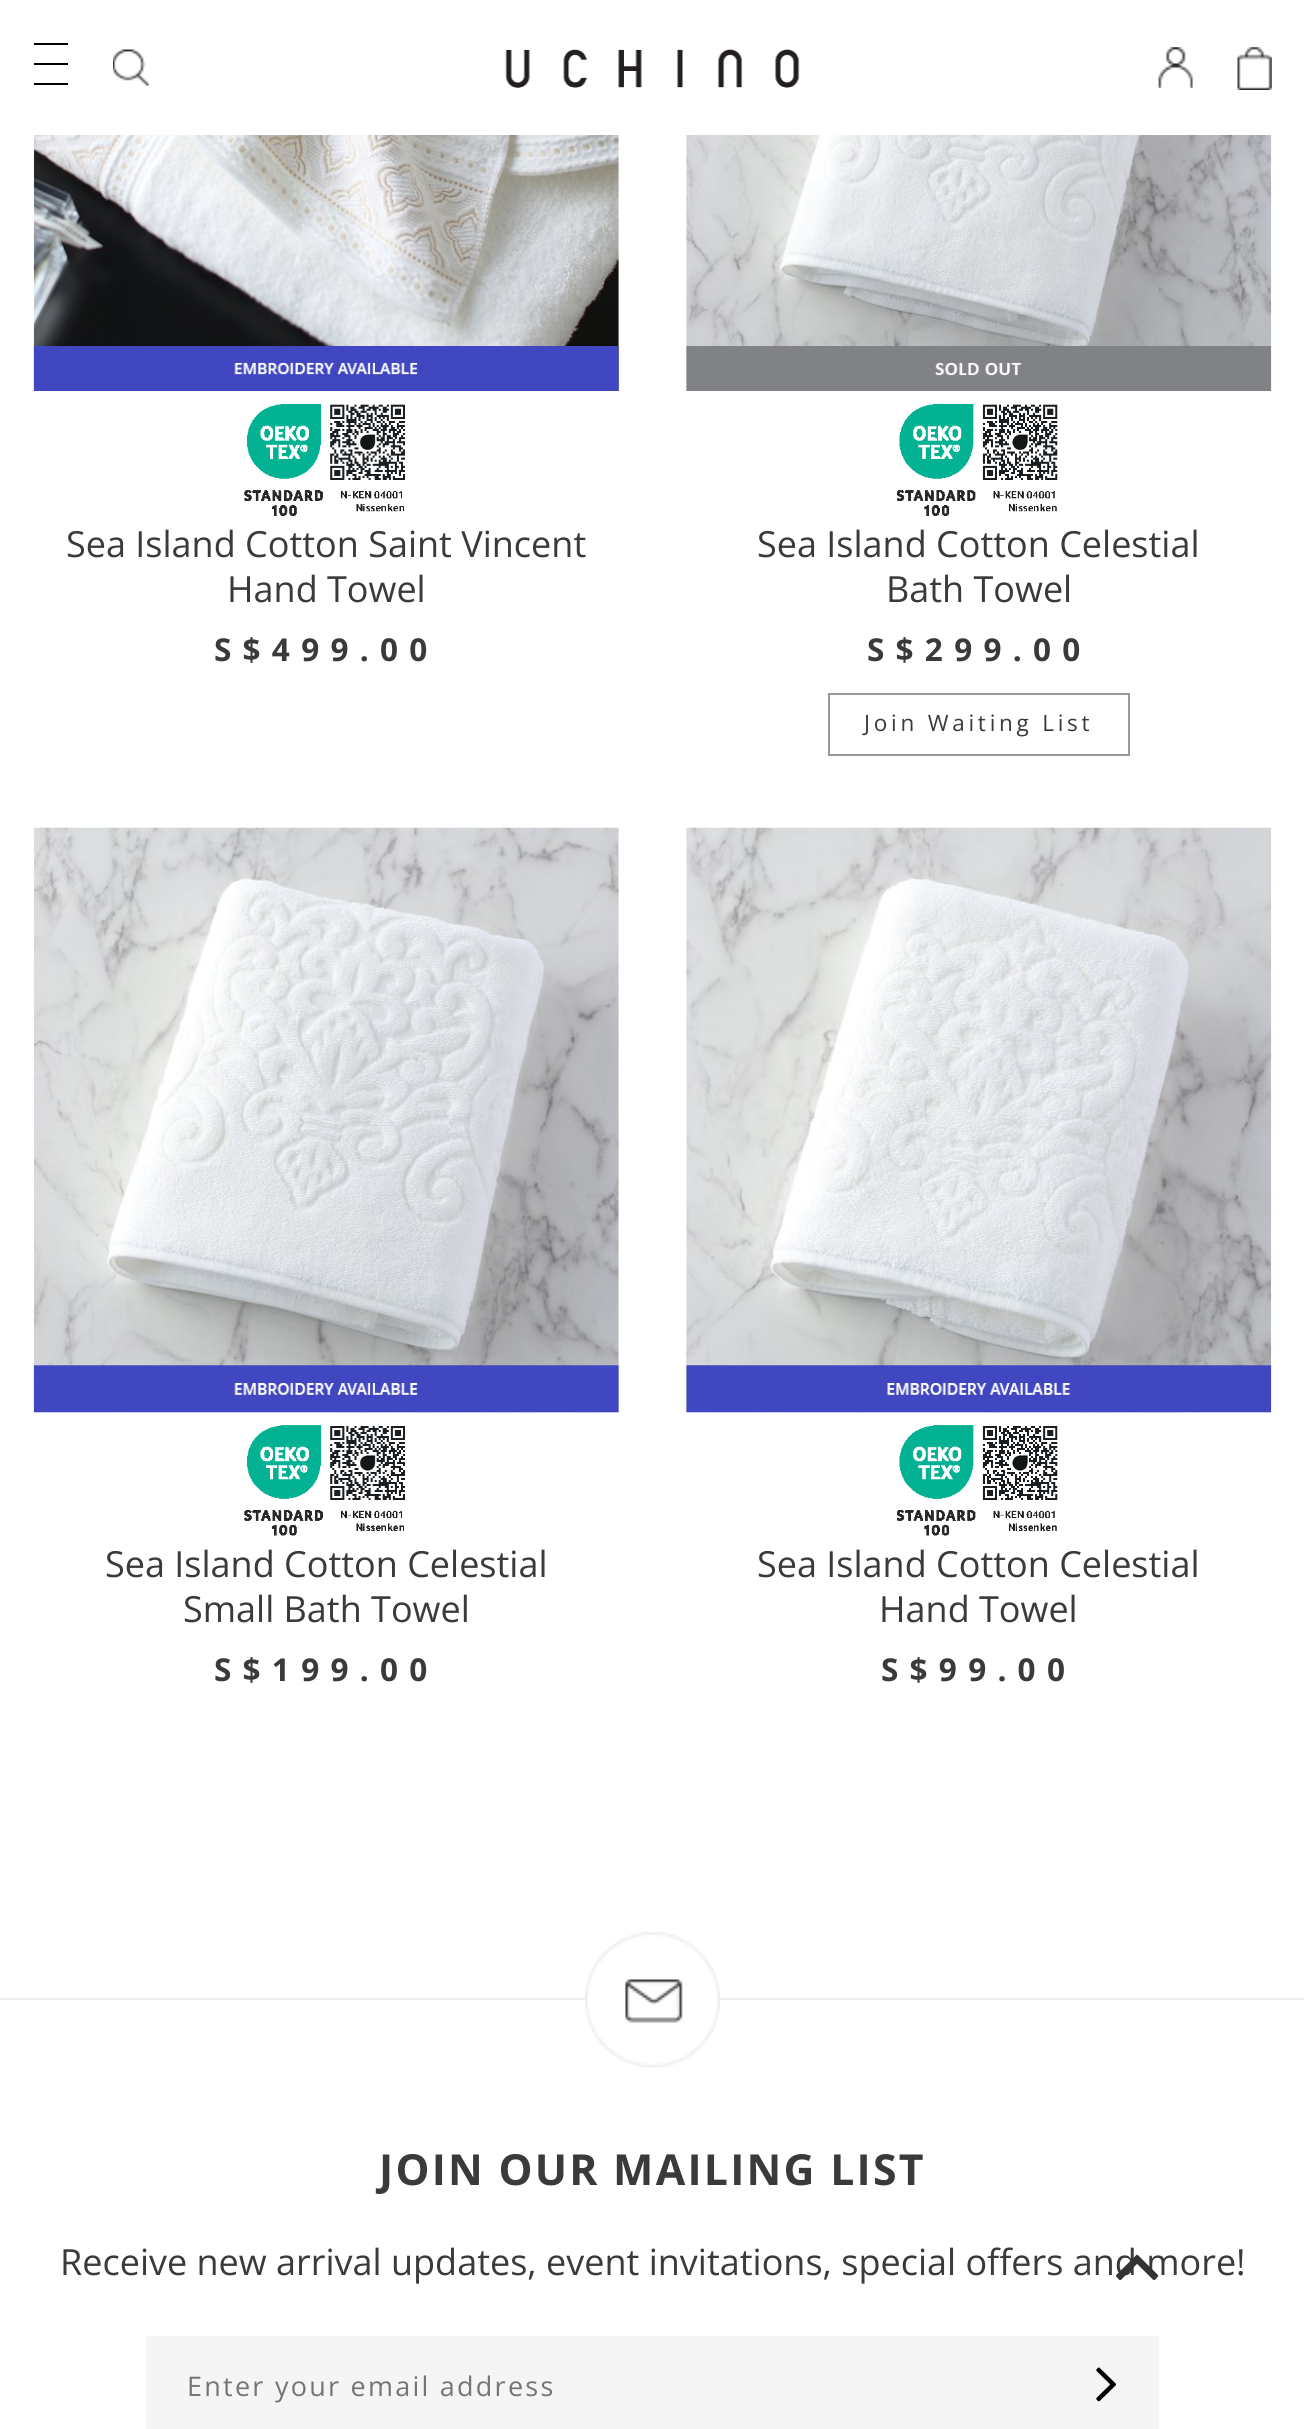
import math
import cairocffi as cairo

surface = cairo.ImageSurface(cairo.FORMAT_RGB24, 1304, 2429)
ctx = cairo.Context(surface)
options = cairo.FontOptions()
options.set_hint_metrics(cairo.HINT_METRICS_OFF)
options.set_hint_style(cairo.HINT_STYLE_NONE)
ctx.set_font_options(options)
ctx.set_miter_limit(4)


def rgb(r, g, b):
    ctx.set_source_rgb(r / 255, g / 255, b / 255)


def face(family, size, italic, bold):
    ctx.select_font_face(family, cairo.FONT_SLANT_ITALIC if italic else cairo.FONT_SLANT_NORMAL, cairo.FONT_WEIGHT_BOLD if bold else cairo.FONT_WEIGHT_NORMAL)
    ctx.set_font_size(size)


def label(x, y, s):
    ctx.move_to(x, y)
    ctx.show_text(s)


def tracked(x, y, s, letter, word):
    ctx.move_to(x, y)
    for ch in s:
        ctx.show_text(ch)
        ctx.rel_move_to(letter + word * (ch == ' '), 0)


def rect(x, y, w, h):
    ctx.rectangle(x, y, w, h)
    ctx.fill()


def image(path, x, y, w, h):
    ctx.save()
    ctx.set_source_surface(cairo.ImageSurface.create_from_png(path), x, y)
    ctx.rectangle(x, y, w, h)
    ctx.fill()
    ctx.restore()


rgb(255, 255, 255)
ctx.paint()
rgb(0, 0, 0)
rect(34, 43, 34, 2)
rect(34, 63, 34, 2)
rect(34, 83, 34, 2)
image('image0.png', 113, 49, 36, 37)
image('image1.png', 505, 49, 295, 39)
image('image2.png', 1158, 47, 35, 41)
image('image3.png', 1237, 47, 35, 43)
image('image4.png', 33, 135, 586, 256)
image('image5.png', 33, 346, 586, 45)
image('image6.png', 244, 404, 161, 112)
face('Open Sans', 36, 0, 0)
rgb(58, 58, 58)
label(66, 557, 'Sea Island Cotton Saint Vincent')
label(227, 602, 'Hand Towel')
face('Open Sans', 31.5, 0, 1)
tracked(214, 661, 'S$499.00', 11.25, 0)
image('image7.png', 686, 135, 586, 256)
image('image8.png', 686, 346, 586, 45)
image('image9.png', 897, 404, 161, 112)
face('Open Sans', 36, 0, 0)
label(757, 557, 'Sea Island Cotton Celestial')
label(886, 602, 'Bath Towel')
face('Open Sans', 31.5, 0, 1)
tracked(867, 661, 'S$299.00', 11.25, 0)
ctx.rectangle(829, 694, 300, 61)
rgb(153, 153, 153)
ctx.stroke()
face('Open Sans', 22.5, 0, 0)
rgb(58, 58, 58)
tracked(864, 731, 'Join Waiting List', 3.75, 0)
image('image10.png', 33, 827, 586, 586)
image('image11.png', 33, 1365, 586, 48)
image('image12.png', 244, 1425, 161, 111)
face('Open Sans', 36, 0, 0)
label(105, 1577, 'Sea Island Cotton Celestial')
label(183, 1622, 'Small Bath Towel')
face('Open Sans', 31.5, 0, 1)
tracked(214, 1681, 'S$199.00', 11.25, 0)
image('image13.png', 686, 827, 586, 586)
image('image14.png', 686, 1365, 586, 48)
image('image15.png', 897, 1425, 161, 111)
face('Open Sans', 36, 0, 0)
label(757, 1577, 'Sea Island Cotton Celestial')
label(879, 1622, 'Hand Towel')
face('Open Sans', 31.5, 0, 1)
tracked(881, 1681, 'S$99.00', 11.25, 0)
rgb(238, 238, 238)
rect(0, 1998, 1304, 2)
image('image16.png', 585, 1932, 135, 136)
face('Open Sans', 42.75, 0, 1)
rgb(58, 58, 58)
tracked(379, 2185, 'JOIN OUR MAILING LIST', 2.25, 0)
face('Open Sans', 36, 0, 0)
label(60, 2275, 'Receive new arrival updates, event invitations, special offers and more!')
rgb(245, 245, 245)
rect(146, 2336, 1013, 93)
face('Open Sans', 27, 0, 0)
rgb(117, 117, 117)
tracked(187, 2396, 'Enter your email address', 2.25, 0)
image('image17.png', 1096, 2367, 20, 35)
image('image18.png', 1116, 2254, 43, 27)
surface.write_to_png('render.png')
